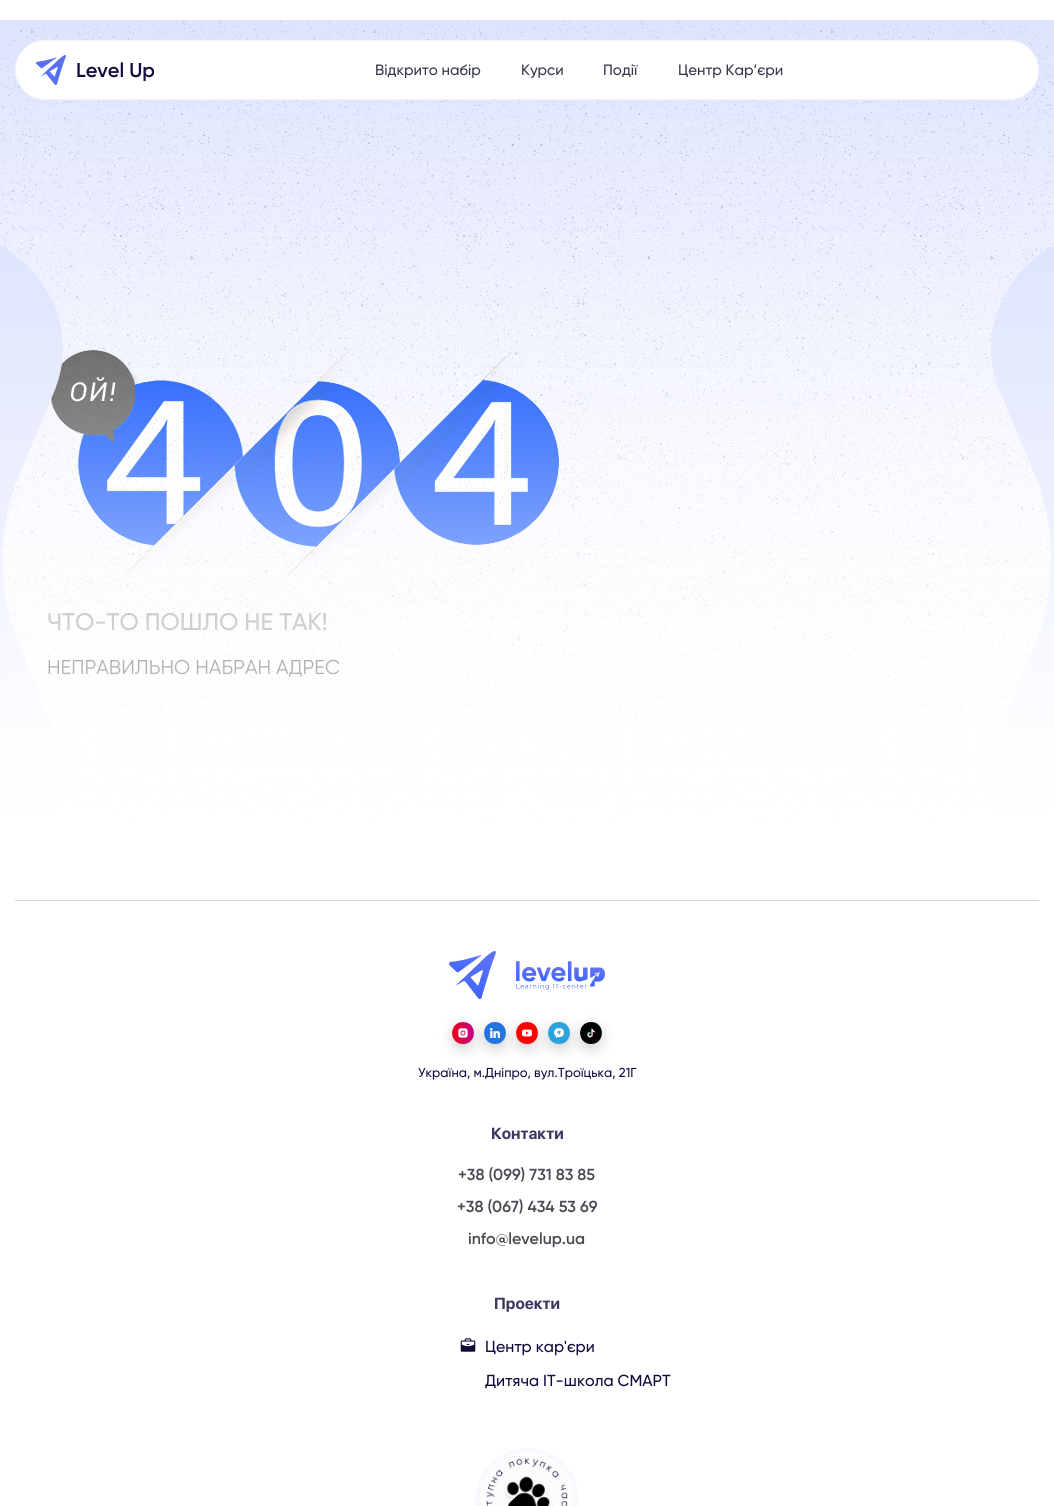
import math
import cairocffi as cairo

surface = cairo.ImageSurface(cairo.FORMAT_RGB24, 1054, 1506)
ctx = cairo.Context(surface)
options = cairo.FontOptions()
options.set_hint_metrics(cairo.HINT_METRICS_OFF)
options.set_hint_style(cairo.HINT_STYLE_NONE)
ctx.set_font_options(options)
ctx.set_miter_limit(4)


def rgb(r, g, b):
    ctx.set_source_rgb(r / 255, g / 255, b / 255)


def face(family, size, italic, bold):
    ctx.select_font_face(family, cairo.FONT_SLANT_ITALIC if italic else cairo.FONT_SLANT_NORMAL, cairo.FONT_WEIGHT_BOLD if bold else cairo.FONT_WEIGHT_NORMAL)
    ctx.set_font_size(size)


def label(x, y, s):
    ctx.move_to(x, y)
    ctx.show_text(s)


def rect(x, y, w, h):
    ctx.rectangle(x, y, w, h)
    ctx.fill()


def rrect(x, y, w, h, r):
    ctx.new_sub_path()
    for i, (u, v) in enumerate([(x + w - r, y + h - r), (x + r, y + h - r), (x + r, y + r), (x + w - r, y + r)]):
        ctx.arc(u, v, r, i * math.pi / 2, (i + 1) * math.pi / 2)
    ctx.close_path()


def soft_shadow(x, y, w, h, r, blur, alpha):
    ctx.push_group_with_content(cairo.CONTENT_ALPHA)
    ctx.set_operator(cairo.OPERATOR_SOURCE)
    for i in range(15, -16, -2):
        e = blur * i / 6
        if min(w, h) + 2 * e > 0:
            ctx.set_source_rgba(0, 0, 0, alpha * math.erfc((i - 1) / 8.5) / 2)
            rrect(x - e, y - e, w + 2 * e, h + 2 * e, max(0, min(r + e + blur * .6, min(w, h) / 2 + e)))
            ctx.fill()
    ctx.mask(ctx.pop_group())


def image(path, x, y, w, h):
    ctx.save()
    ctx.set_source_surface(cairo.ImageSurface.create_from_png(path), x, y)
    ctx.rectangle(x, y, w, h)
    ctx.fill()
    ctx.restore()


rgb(255, 255, 255)
ctx.paint()
image('image1.png', 0, 20, 1054, 681)
image('image4.png', 50, 344, 509, 238)
face('Gilroy Medium', 24, 0, 0)
rgb(128, 128, 128)
label(47, 630, 'ЧТО-ТО ПОШЛО НЕ ТАК!')
face('Gilroy', 20, 0, 0)
rgb(0, 0, 0)
label(47, 674, 'НЕПРАВИЛЬНО НАБРАН АДРЕС')
image('image2.png', 0, 20, 1054, 800)
rgb(255, 255, 255)
rrect(15.5, 40.5, 1023, 59, 29.5)
ctx.fill_preserve()
rgb(242, 244, 255)
ctx.set_line_width(1)
ctx.stroke()
image('image0.png', 36, 55, 30, 30)
face('Gilroy SemiBold', 20, 0, 0)
rgb(14, 11, 61)
label(76, 77, 'Level Up')
face('Gilroy Medium', 15, 0, 0)
rgb(51, 58, 74)
label(375, 75, 'Відкрито набір')
label(521, 75, 'Курси')
label(603, 75, 'Події')
label(678, 75, 'Центр Кар’єри')
image('image3.png', 0, 245, 1054, 575)
rgb(213, 212, 221)
rect(15, 900, 1024, 1)
image('image5.png', 449, 951, 156, 48)
rgb(0, 0, 0)
soft_shadow(454, 1029, 18, 18, 9, 7.5, 0.2)
gradient = cairo.LinearGradient(444, 1034, 482, 1032)
gradient.add_color_stop_rgba(0.15, 0.953, 0, 0.02, 1)
gradient.add_color_stop_rgba(0.92, 0.741, 0, 0.651, 1)
ctx.set_source(gradient)
ctx.new_path()
ctx.move_to(463, 1022)
ctx.curve_to(448.5, 1022, 448.5, 1044, 463, 1044)
ctx.curve_to(477.5, 1044, 477.5, 1022, 463, 1022)
ctx.close_path()
ctx.fill()
image('image6.png', 458, 1028, 10, 10)
rgb(0, 0, 0)
soft_shadow(486, 1029, 18, 18, 9, 7.5, 0.2)
rgb(35, 116, 225)
ctx.new_path()
ctx.move_to(495, 1022)
ctx.curve_to(480.5, 1022, 480.5, 1044, 495, 1044)
ctx.curve_to(509.5, 1044, 509.5, 1022, 495, 1022)
ctx.close_path()
ctx.fill()
image('image7.png', 490, 1028, 10, 10)
rgb(0, 0, 0)
soft_shadow(518, 1029, 18, 18, 9, 7.5, 0.2)
rgb(255, 0, 0)
ctx.new_path()
ctx.move_to(527, 1022)
ctx.curve_to(512.5, 1022, 512.5, 1044, 527, 1044)
ctx.curve_to(541.5, 1044, 541.5, 1022, 527, 1022)
ctx.close_path()
ctx.fill()
image('image8.png', 522, 1029, 10, 8)
rgb(0, 0, 0)
soft_shadow(550, 1029, 18, 18, 9, 7.5, 0.2)
rgb(43, 162, 222)
ctx.new_path()
ctx.move_to(559, 1022)
ctx.curve_to(544.5, 1022, 544.5, 1044, 559, 1044)
ctx.curve_to(573.5, 1044, 573.5, 1022, 559, 1022)
ctx.close_path()
ctx.fill()
image('image9.png', 554, 1028, 10, 10)
rgb(0, 0, 0)
soft_shadow(582, 1029, 18, 18, 9, 7.5, 0.2)
rgb(0, 0, 0)
ctx.new_path()
ctx.move_to(591, 1022)
ctx.curve_to(576.5, 1022, 576.5, 1044, 591, 1044)
ctx.curve_to(605.5, 1044, 605.5, 1022, 591, 1022)
ctx.close_path()
ctx.fill()
image('image10.png', 587, 1028, 9, 10)
face('Gilroy Medium', 13, 0, 0)
rgb(14, 11, 61)
label(418, 1077, 'Україна, м.Дніпро, вул.Троїцька, 21Г')
face('SF Pro Display', 16, 0, 1)
rgb(58, 56, 97)
label(491, 1139, 'Контакти')
face('Gilroy SemiBold', 16, 0, 0)
rgb(74, 72, 81)
label(458, 1180, '+38 (099) 731 83 85')
label(457, 1212, '+38 (067) 434 53 69')
label(468, 1244, 'info@levelup.ua')
face('SF Pro Display', 16, 0, 1)
rgb(58, 56, 97)
label(494, 1309, 'Проекти')
image('image11.png', 460, 1338, 16, 14)
face('Gilroy Medium', 16, 0, 0)
rgb(14, 11, 61)
label(485, 1352, 'Центр кар\'єри')
label(485, 1386, 'Дитяча IT-школа СМАРТ')
image('image12.png', 475, 1448, 104, 58)
surface.write_to_png('render.png')
